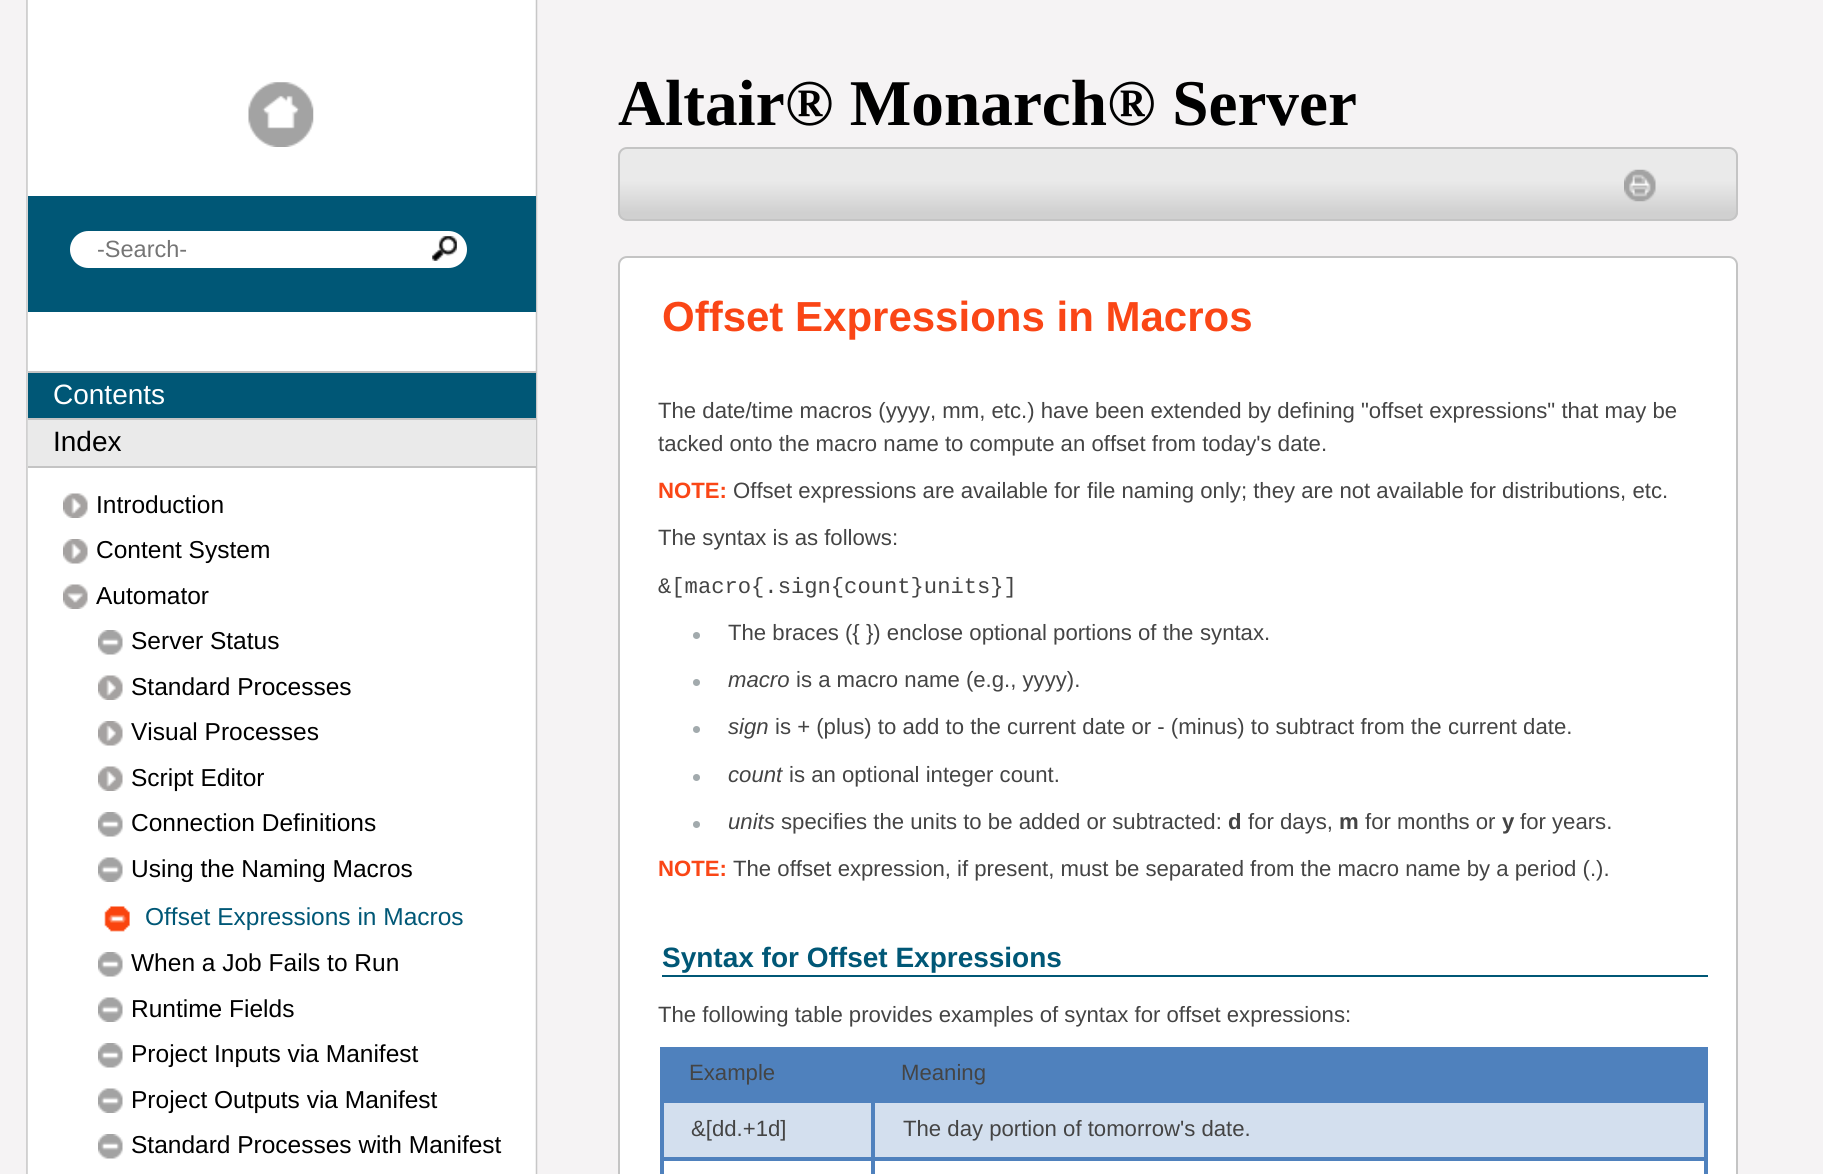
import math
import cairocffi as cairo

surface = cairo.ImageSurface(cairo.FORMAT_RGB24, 1823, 1174)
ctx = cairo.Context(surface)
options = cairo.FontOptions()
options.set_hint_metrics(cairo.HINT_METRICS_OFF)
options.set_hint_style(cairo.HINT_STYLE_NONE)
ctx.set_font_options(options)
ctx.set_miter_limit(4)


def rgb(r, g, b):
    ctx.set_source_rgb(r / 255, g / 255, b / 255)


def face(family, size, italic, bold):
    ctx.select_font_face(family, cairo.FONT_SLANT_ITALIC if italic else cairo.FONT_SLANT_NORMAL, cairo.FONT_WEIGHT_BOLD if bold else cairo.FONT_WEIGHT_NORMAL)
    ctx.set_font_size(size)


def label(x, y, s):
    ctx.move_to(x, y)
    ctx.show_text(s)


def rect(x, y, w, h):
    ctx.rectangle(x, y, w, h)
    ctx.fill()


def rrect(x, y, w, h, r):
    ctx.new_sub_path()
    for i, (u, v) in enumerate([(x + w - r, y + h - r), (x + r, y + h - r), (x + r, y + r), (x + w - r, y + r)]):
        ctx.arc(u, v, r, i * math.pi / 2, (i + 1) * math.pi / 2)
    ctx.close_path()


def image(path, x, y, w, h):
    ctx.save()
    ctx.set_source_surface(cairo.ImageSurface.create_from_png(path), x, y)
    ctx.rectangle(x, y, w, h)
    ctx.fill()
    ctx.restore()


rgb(245, 243, 244)
ctx.paint()
image('image0.png', 26, 0, 512, 1174)
image('image1.png', 248, 82, 66, 65)
rgb(0, 87, 118)
rect(28, 196, 508, 116)
rgb(255, 255, 255)
rrect(70, 231, 397, 37, 18.5)
ctx.fill()
face('Liberation Sans', 23.5, 0, 0)
rgb(117, 117, 117)
label(97, 257, '-Search-')
image('image2.png', 432, 236, 25, 25)
rgb(196, 196, 196)
rect(28, 371, 508, 2)
rgb(0, 87, 118)
rect(28, 373, 508, 45)
rgb(196, 196, 196)
rect(28, 418, 508, 2)
face('Liberation Sans', 28, 0, 0)
rgb(255, 255, 255)
label(53, 404, 'Contents')
rgb(234, 234, 234)
rect(28, 420, 508, 46)
rgb(196, 196, 196)
rect(28, 466, 508, 2)
rgb(0, 0, 0)
label(53, 451, 'Index')
image('image3.png', 63, 493, 25, 25)
face('Liberation Sans', 24.5, 0, 0)
label(96, 513, 'Introduction')
image('image4.png', 63, 539, 25, 25)
label(96, 558, 'Content System')
image('image5.png', 63, 584, 25, 25)
label(96, 604, 'Automator')
image('image6.png', 98, 630, 25, 25)
label(131, 649, 'Server Status')
image('image7.png', 98, 675, 25, 25)
label(131, 695, 'Standard Processes')
image('image8.png', 98, 721, 25, 25)
label(131, 740, 'Visual Processes')
image('image7.png', 98, 766, 25, 25)
label(131, 786, 'Script Editor')
image('image6.png', 98, 812, 25, 25)
label(131, 831, 'Connection Definitions')
image('image9.png', 98, 857, 25, 25)
label(131, 877, 'Using the Naming Macros')
image('image10.png', 104, 906, 26, 26)
rgb(0, 87, 118)
label(145, 925, 'Offset Expressions in Macros')
image('image6.png', 98, 952, 25, 25)
rgb(0, 0, 0)
label(131, 971, 'When a Job Fails to Run')
image('image9.png', 98, 997, 25, 25)
label(131, 1017, 'Runtime Fields')
image('image6.png', 98, 1043, 25, 25)
label(131, 1062, 'Project Inputs via Manifest')
image('image9.png', 98, 1088, 25, 25)
label(131, 1108, 'Project Outputs via Manifest')
image('image6.png', 98, 1134, 25, 25)
label(131, 1153, 'Standard Processes with Manifest')
face('Liberation Serif', 65.25, 0, 1)
label(618, 125, 'Altair® Monarch® Server')
ctx.save()
rrect(618, 147, 1120, 74, 9)
ctx.clip()
gradient = cairo.LinearGradient(620, 219, 620, 149)
gradient.add_color_stop_rgba(0.09, 0.816, 0.816, 0.816, 1)
gradient.add_color_stop_rgba(0.55, 0.918, 0.918, 0.918, 1)
ctx.set_source(gradient)
rect(618, 149, 1120, 70)
ctx.restore()
rrect(619, 148, 1118, 72, 8)
rgb(196, 196, 196)
ctx.stroke()
image('image11.png', 1624, 169, 32, 33)
rgb(255, 255, 255)
rrect(619, 257, 1118, 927, 8)
ctx.fill_preserve()
rgb(196, 196, 196)
ctx.stroke()
face('Liberation Sans', 42, 0, 1)
rgb(250, 70, 22)
label(662, 331, 'Offset Expressions in Macros')
face('Liberation Sans', 22.15, 0, 0)
rgb(68, 68, 68)
label(658, 418, 'The date/time macros (yyyy, mm, etc.) have been extended by defining "offset expressions" that may be')
label(658, 451, 'tacked onto the macro name to compute an offset from today\'s date.')
face('Liberation Sans', 22.15, 0, 1)
rgb(250, 70, 22)
label(658, 498, 'NOTE:')
face('Liberation Sans', 22.15, 0, 0)
rgb(68, 68, 68)
label(733, 498, 'Offset expressions are available for')
label(1087, 498, 'file naming only; they are not available for distributions, etc.')
label(658, 545, 'The syntax is as follows:')
face('Liberation Mono', 22.15, 0, 0)
label(658, 593, '&[macro{.sign{count}units}]')
rgb(162, 170, 173)
ctx.new_path()
ctx.arc(696.5, 635.5, 3.5, 0, 2 * math.pi)
ctx.fill()
face('Liberation Sans', 22.15, 0, 0)
rgb(68, 68, 68)
label(728, 640, 'The braces ({ }) enclose optional portions of the')
label(1200, 640, 'syntax.')
rgb(162, 170, 173)
ctx.new_path()
ctx.arc(696.5, 682.5, 3.5, 0, 2 * math.pi)
ctx.fill()
face('Liberation Sans', 22.15, 1, 0)
rgb(68, 68, 68)
label(728, 687, 'macro')
face('Liberation Sans', 22.15, 0, 0)
label(796, 687, 'is a macro name (e.g., yyyy).')
rgb(162, 170, 173)
ctx.new_path()
ctx.arc(696.5, 729.5, 3.5, 0, 2 * math.pi)
ctx.fill()
face('Liberation Sans', 22.15, 1, 0)
rgb(68, 68, 68)
label(728, 734, 'sign')
face('Liberation Sans', 22.15, 0, 0)
label(775, 734, 'is + (plus) to add to the current date or - (minus) to subtract from the')
label(1448, 734, 'current date.')
rgb(162, 170, 173)
ctx.new_path()
ctx.arc(696.5, 777.5, 3.5, 0, 2 * math.pi)
ctx.fill()
face('Liberation Sans', 22.15, 1, 0)
rgb(68, 68, 68)
label(728, 782, 'count')
face('Liberation Sans', 22.15, 0, 0)
label(789, 782, 'is an optional integer count.')
rgb(162, 170, 173)
ctx.new_path()
ctx.arc(696.5, 824.5, 3.5, 0, 2 * math.pi)
ctx.fill()
face('Liberation Sans', 22.15, 1, 0)
rgb(68, 68, 68)
label(728, 829, 'units')
face('Liberation Sans', 22.15, 0, 0)
label(781, 829, 'specifies the units to be added or subtracted:')
face('Liberation Sans', 22.15, 0, 1)
label(1228, 829, 'd')
face('Liberation Sans', 22.15, 0, 0)
label(1248, 829, 'for days,')
face('Liberation Sans', 22.15, 0, 1)
label(1339, 829, 'm')
face('Liberation Sans', 22.15, 0, 0)
label(1365, 829, 'for months or')
face('Liberation Sans', 22.15, 0, 1)
label(1502, 829, 'y')
face('Liberation Sans', 22.15, 0, 0)
label(1520, 829, 'for years.')
face('Liberation Sans', 22.15, 0, 1)
rgb(250, 70, 22)
label(658, 876, 'NOTE:')
face('Liberation Sans', 22.15, 0, 0)
rgb(68, 68, 68)
label(733, 876, 'The offset expression, if present, must be separated from the macro name by a period (.).')
rgb(0, 87, 118)
rect(662, 975, 1046, 2)
face('Liberation Sans', 28, 0, 1)
label(662, 967, 'Syntax for Offset Expressions')
face('Liberation Sans', 22.15, 0, 0)
rgb(68, 68, 68)
label(658, 1022, 'The following table provides examples of syntax for offset expressions:')
rgb(79, 129, 189)
rect(1706, 1047, 2, 127)
rect(660, 1047, 2, 127)
rect(662, 1047, 1044, 54)
rgb(68, 68, 68)
label(689, 1080, 'Example')
label(901, 1080, 'Meaning')
rgb(211, 223, 238)
ctx.rectangle(663, 1102, 209, 56)
ctx.fill_preserve()
rgb(79, 129, 189)
ctx.stroke()
rgb(68, 68, 68)
label(691, 1136, '&[dd.+1d]')
rgb(211, 223, 238)
ctx.rectangle(874, 1102, 831, 56)
ctx.fill_preserve()
rgb(79, 129, 189)
ctx.stroke()
rgb(68, 68, 68)
label(903, 1136, 'The day portion of tomorrow\'s date.')
ctx.rectangle(663, 1160, 209, 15)
rgb(79, 129, 189)
ctx.stroke()
ctx.rectangle(874, 1160, 831, 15)
ctx.stroke()
surface.write_to_png('render.png')
